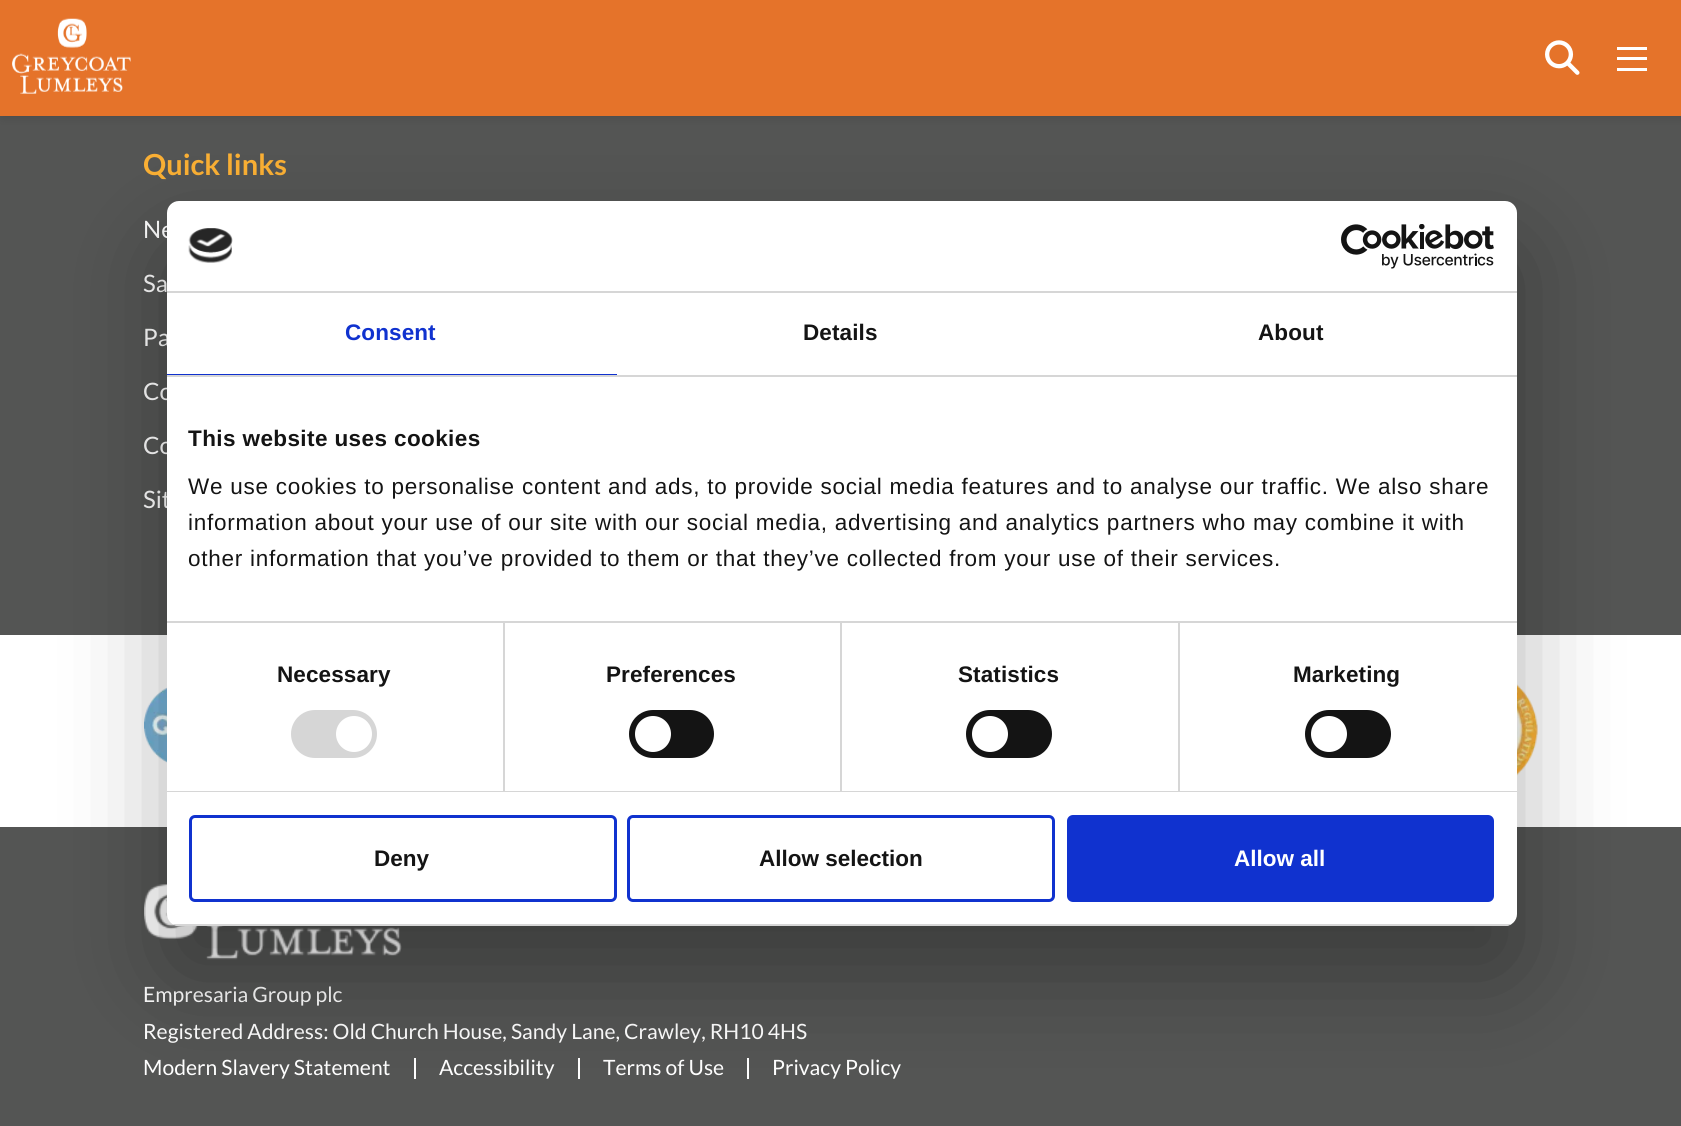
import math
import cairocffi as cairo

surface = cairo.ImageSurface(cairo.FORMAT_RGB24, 1681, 1126)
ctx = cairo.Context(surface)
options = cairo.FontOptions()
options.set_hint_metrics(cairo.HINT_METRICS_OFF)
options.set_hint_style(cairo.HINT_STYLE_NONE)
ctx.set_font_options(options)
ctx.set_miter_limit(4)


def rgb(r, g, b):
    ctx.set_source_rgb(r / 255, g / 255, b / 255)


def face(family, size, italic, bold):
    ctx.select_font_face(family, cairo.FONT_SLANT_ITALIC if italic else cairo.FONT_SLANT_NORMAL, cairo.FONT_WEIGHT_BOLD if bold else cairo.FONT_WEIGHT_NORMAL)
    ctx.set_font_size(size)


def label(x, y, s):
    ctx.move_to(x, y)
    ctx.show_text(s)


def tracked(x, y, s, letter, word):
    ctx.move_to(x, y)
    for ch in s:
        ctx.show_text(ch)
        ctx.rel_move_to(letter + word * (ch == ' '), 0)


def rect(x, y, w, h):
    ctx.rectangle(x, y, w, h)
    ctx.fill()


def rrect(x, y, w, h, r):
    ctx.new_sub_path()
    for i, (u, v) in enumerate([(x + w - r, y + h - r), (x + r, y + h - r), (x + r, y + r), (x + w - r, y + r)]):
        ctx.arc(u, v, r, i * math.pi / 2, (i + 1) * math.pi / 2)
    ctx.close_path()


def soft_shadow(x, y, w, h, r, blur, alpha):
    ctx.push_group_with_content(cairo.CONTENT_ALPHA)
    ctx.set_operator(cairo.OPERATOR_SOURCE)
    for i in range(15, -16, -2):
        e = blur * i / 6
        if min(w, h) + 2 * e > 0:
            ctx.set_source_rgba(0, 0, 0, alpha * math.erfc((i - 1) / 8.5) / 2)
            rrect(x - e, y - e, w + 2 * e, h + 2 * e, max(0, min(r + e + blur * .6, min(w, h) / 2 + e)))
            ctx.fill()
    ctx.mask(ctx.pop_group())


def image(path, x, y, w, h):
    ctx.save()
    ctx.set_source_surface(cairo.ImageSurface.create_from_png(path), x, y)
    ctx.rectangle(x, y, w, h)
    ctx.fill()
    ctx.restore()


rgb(84, 85, 84)
ctx.paint()
rgb(0, 0, 0)
soft_shadow(2, 0, 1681, 116, 0, 6, 0.14)
rgb(229, 115, 42)
rect(0, 0, 1681, 116)
image('image0.png', 12, 18, 119, 76)
image('image1.png', 1545, 40, 35, 35)
rgb(255, 255, 255)
rect(1617, 57, 30, 3)
rect(1617, 47, 30, 3)
rect(1617, 68, 30, 3)
face('Lato', 29, 0, 1)
rgb(251, 176, 52)
label(143, 175, 'Quick links')
face('Lato', 24, 0, 0)
rgb(255, 255, 255)
label(143, 238, 'Ne')
label(143, 292, 'Sa')
label(143, 346, 'Pa')
label(143, 400, 'Co')
label(143, 454, 'Co')
label(143, 508, 'Sit')
rect(0, 635, 1681, 192)
image('image2.png', 144, 687, 23, 76)
image('image3.png', 1517, 684, 21, 92)
image('image4.png', 144, 884, 258, 76)
face('Lato', 21.1, 0, 0)
label(143, 1002, 'Empresaria Group plc')
label(143, 1039, 'Registered Address: Old Church House, Sandy Lane, Crawley, RH10 4HS')
label(143, 1075, 'Modern Slavery Statement')
rect(414, 1058, 2, 21)
label(439, 1075, 'Accessibility')
rect(578, 1058, 2, 21)
label(603, 1075, 'Terms of Use')
rect(747, 1058, 2, 21)
label(772, 1075, 'Privacy Policy')
rgb(0, 0, 0)
soft_shadow(167, 249, 1350, 725, 12, 51, 0.3)
rgb(255, 255, 255)
rrect(167, 201, 1350, 725, 12)
ctx.fill()
rgb(214, 214, 214)
rect(167, 291, 1350, 2)
image('image5.png', 188, 228, 45, 35)
image('image6.png', 1341, 224, 153, 45)
rect(167, 375, 1350, 2)
rgb(16, 50, 207)
rect(167, 374, 450, 1)
face('Liberation Sans', 22.5, 0, 1)
tracked(345, 340, 'Consent', 0.1, 0)
rgb(20, 20, 20)
tracked(803, 340, 'Details', 0.1, 0)
tracked(1258, 340, 'About', 0.1, 0)
rgb(214, 214, 214)
rect(167, 621, 1350, 2)
rgb(20, 20, 20)
tracked(188, 446, 'This website uses cookies', 0.4, 0)
face('Liberation Sans', 22.5, 0, 0)
tracked(188, 494, 'We use cookies to personalise content and ads, to provide social media features and to analyse our traffic. We also share', 0.75, 0)
tracked(188, 530, 'information about your use of our site with our social media, advertising and analytics partners who may combine it with', 0.75, 0)
tracked(188, 566, 'other information that you’ve provided to them or that they’ve collected from your use of their services.', 0.75, 0)
rgb(214, 214, 214)
rect(167, 791, 1350, 1)
rect(503, 623, 2, 168)
face('Liberation Sans', 22.5, 0, 1)
rgb(20, 20, 20)
tracked(277, 682, 'Necessary', 0.1, 0)
rgb(214, 214, 214)
rrect(291, 710, 86, 48, 24)
ctx.fill()
rgb(255, 255, 255)
ctx.arc(354, 734, 18, 0, 2 * math.pi)
ctx.fill()
rgb(214, 214, 214)
rect(840, 623, 2, 168)
rgb(20, 20, 20)
tracked(606, 682, 'Preferences', 0.1, 0)
rrect(629, 710, 85, 48, 24)
ctx.fill()
rgb(255, 255, 255)
ctx.arc(653, 734, 18, 0, 2 * math.pi)
ctx.fill()
rgb(214, 214, 214)
rect(1178, 623, 2, 168)
rgb(20, 20, 20)
tracked(958, 682, 'Statistics', 0.1, 0)
rrect(966, 710, 86, 48, 24)
ctx.fill()
rgb(255, 255, 255)
ctx.arc(990, 734, 18, 0, 2 * math.pi)
ctx.fill()
rgb(20, 20, 20)
tracked(1293, 682, 'Marketing', 0.1, 0)
rrect(1305, 710, 86, 48, 24)
ctx.fill()
rgb(255, 255, 255)
ctx.arc(1329, 734, 18, 0, 2 * math.pi)
ctx.fill()
ctx.save()
rrect(167, 201, 1350, 725, 12)
ctx.clip()
rgb(214, 214, 214)
rect(167, 924, 1350, 2)
ctx.restore()
rrect(190.5, 816.5, 425, 84, 4.5)
rgb(16, 50, 207)
ctx.set_line_width(3)
ctx.stroke()
rgb(20, 20, 20)
label(374, 866, 'Deny')
rrect(628.5, 816.5, 425, 84, 4.5)
rgb(16, 50, 207)
ctx.stroke()
rgb(20, 20, 20)
label(759, 866, 'Allow selection')
rgb(16, 50, 207)
rrect(1068.5, 816.5, 424, 84, 4.5)
ctx.fill_preserve()
ctx.stroke()
rgb(255, 255, 255)
label(1234, 866, 'Allow all')
surface.write_to_png('render.png')
